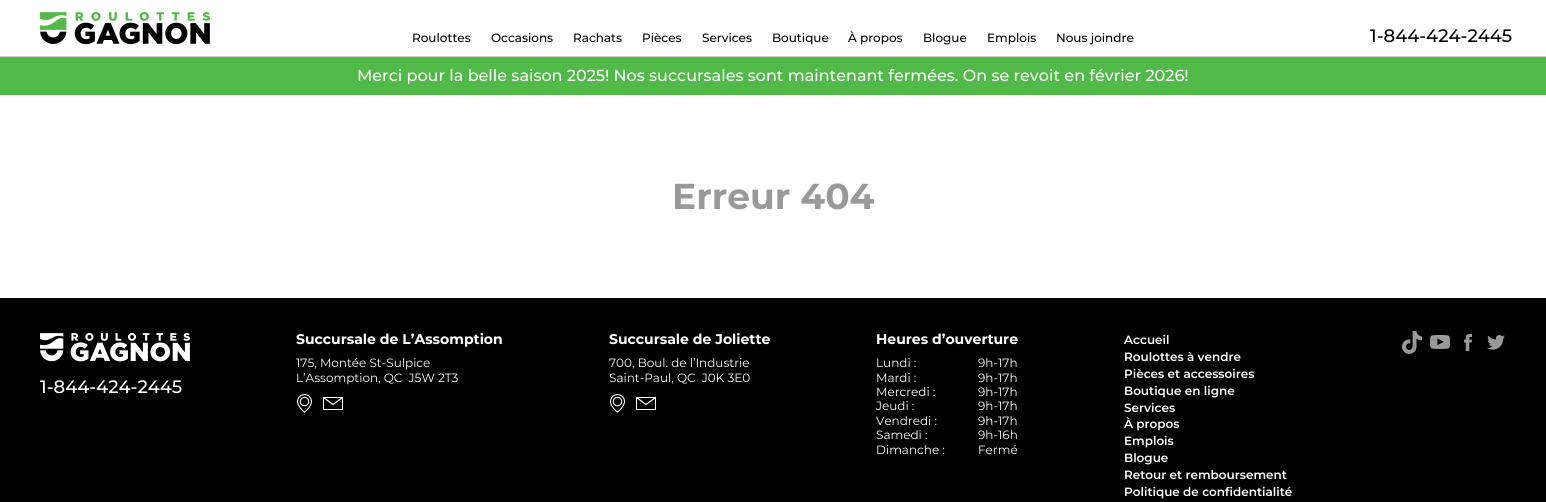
import math
import cairocffi as cairo

surface = cairo.ImageSurface(cairo.FORMAT_RGB24, 1546, 502)
ctx = cairo.Context(surface)
options = cairo.FontOptions()
options.set_hint_metrics(cairo.HINT_METRICS_OFF)
options.set_hint_style(cairo.HINT_STYLE_NONE)
ctx.set_font_options(options)
ctx.set_miter_limit(4)


def rgb(r, g, b):
    ctx.set_source_rgb(r / 255, g / 255, b / 255)


def face(family, size, italic, bold):
    ctx.select_font_face(family, cairo.FONT_SLANT_ITALIC if italic else cairo.FONT_SLANT_NORMAL, cairo.FONT_WEIGHT_BOLD if bold else cairo.FONT_WEIGHT_NORMAL)
    ctx.set_font_size(size)


def label(x, y, s):
    ctx.move_to(x, y)
    ctx.show_text(s)


def rect(x, y, w, h):
    ctx.rectangle(x, y, w, h)
    ctx.fill()


def image(path, x, y, w, h):
    ctx.save()
    ctx.set_source_surface(cairo.ImageSurface.create_from_png(path), x, y)
    ctx.rectangle(x, y, w, h)
    ctx.fill()
    ctx.restore()


rgb(255, 255, 255)
ctx.paint()
rgb(204, 204, 204)
rect(0, 56, 1546, 1)
image('image0.png', 40, 12, 170, 33)
face('Montserrat Medium', 12, 0, 0)
rgb(0, 0, 0)
label(412, 42, 'Roulottes')
label(491, 42, 'Occasions')
label(573, 42, 'Rachats')
label(642, 42, 'Pièces')
label(702, 42, 'Services')
label(772, 42, 'Boutique')
label(848, 42, 'À propos')
label(923, 42, 'Blogue')
label(987, 42, 'Emplois')
label(1056, 42, 'Nous joindre')
face('Montserrat Medium', 18, 0, 0)
label(1370, 42, '1-844-424-2445')
rgb(80, 185, 72)
rect(0, 57, 1546, 38)
face('Montserrat Medium', 16, 0, 0)
rgb(255, 255, 255)
label(357, 81, 'Merci pour la belle saison 2025! Nos succursales sont maintenant fermées. On se revoit en février 2026!')
face('Montserrat', 36, 0, 1)
rgb(153, 153, 153)
label(672, 209, 'Erreur 404')
rgb(0, 0, 0)
rect(0, 298, 1546, 204)
image('image1.png', 40, 333, 150, 29)
face('Montserrat Medium', 18, 0, 0)
rgb(255, 255, 255)
label(40, 393, '1-844-424-2445')
face('Montserrat', 14, 0, 1)
label(296, 344, 'Succursale de L’Assomption')
face('Montserrat', 12, 0, 0)
label(296, 367, '175, Montée St-Sulpice')
label(296, 382, 'L’Assomption, QC  J5W 2T3')
image('image2.png', 297, 394, 15, 19)
ctx.rectangle(323.5, 397.5, 19, 12)
ctx.set_line_width(1)
ctx.stroke()
ctx.new_path()
ctx.move_to(342.5, 397.5)
ctx.line_to(333, 404.5)
ctx.line_to(323.5, 397.5)
ctx.set_line_width(1.2)
ctx.stroke()
face('Montserrat', 14, 0, 1)
label(609, 344, 'Succursale de Joliette')
face('Montserrat', 12, 0, 0)
label(609, 367, '700, Boul. de l’Industrie')
label(609, 382, 'Saint-Paul, QC  J0K 3E0')
image('image2.png', 610, 394, 15, 19)
ctx.rectangle(636.5, 397.5, 19, 12)
ctx.set_line_width(1)
ctx.stroke()
ctx.new_path()
ctx.move_to(655.5, 397.5)
ctx.line_to(646, 404.5)
ctx.line_to(636.5, 397.5)
ctx.set_line_width(1.2)
ctx.stroke()
face('Montserrat', 14, 0, 1)
label(876, 344, 'Heures d’ouverture')
face('Montserrat', 12, 0, 0)
label(876, 367, 'Lundi :')
label(978, 367, '9h-17h')
label(876, 382, 'Mardi :')
label(978, 382, '9h-17h')
label(876, 396, 'Mercredi :')
label(978, 396, '9h-17h')
label(876, 410, 'Jeudi :')
label(978, 410, '9h-17h')
label(876, 425, 'Vendredi :')
label(978, 425, '9h-17h')
label(876, 439, 'Samedi :')
label(978, 439, '9h-16h')
label(876, 454, 'Dimanche :')
label(978, 454, 'Fermé')
face('Montserrat SemiBold', 12, 0, 0)
label(1124, 344, 'Accueil')
label(1124, 361, 'Roulottes à vendre')
label(1124, 378, 'Pièces et accessoires')
label(1124, 395, 'Boutique en ligne')
label(1124, 412, 'Services')
label(1124, 428, 'À propos')
label(1124, 445, 'Emplois')
label(1124, 462, 'Blogue')
label(1124, 479, 'Retour et remboursement')
label(1124, 496, 'Politique de confidentialité')
image('image3.png', 1402, 331, 20, 23)
image('image4.png', 1430, 335, 20, 14)
image('image5.png', 1464, 334, 8, 18)
image('image6.png', 1487, 335, 18, 15)
surface.write_to_png('render.png')
